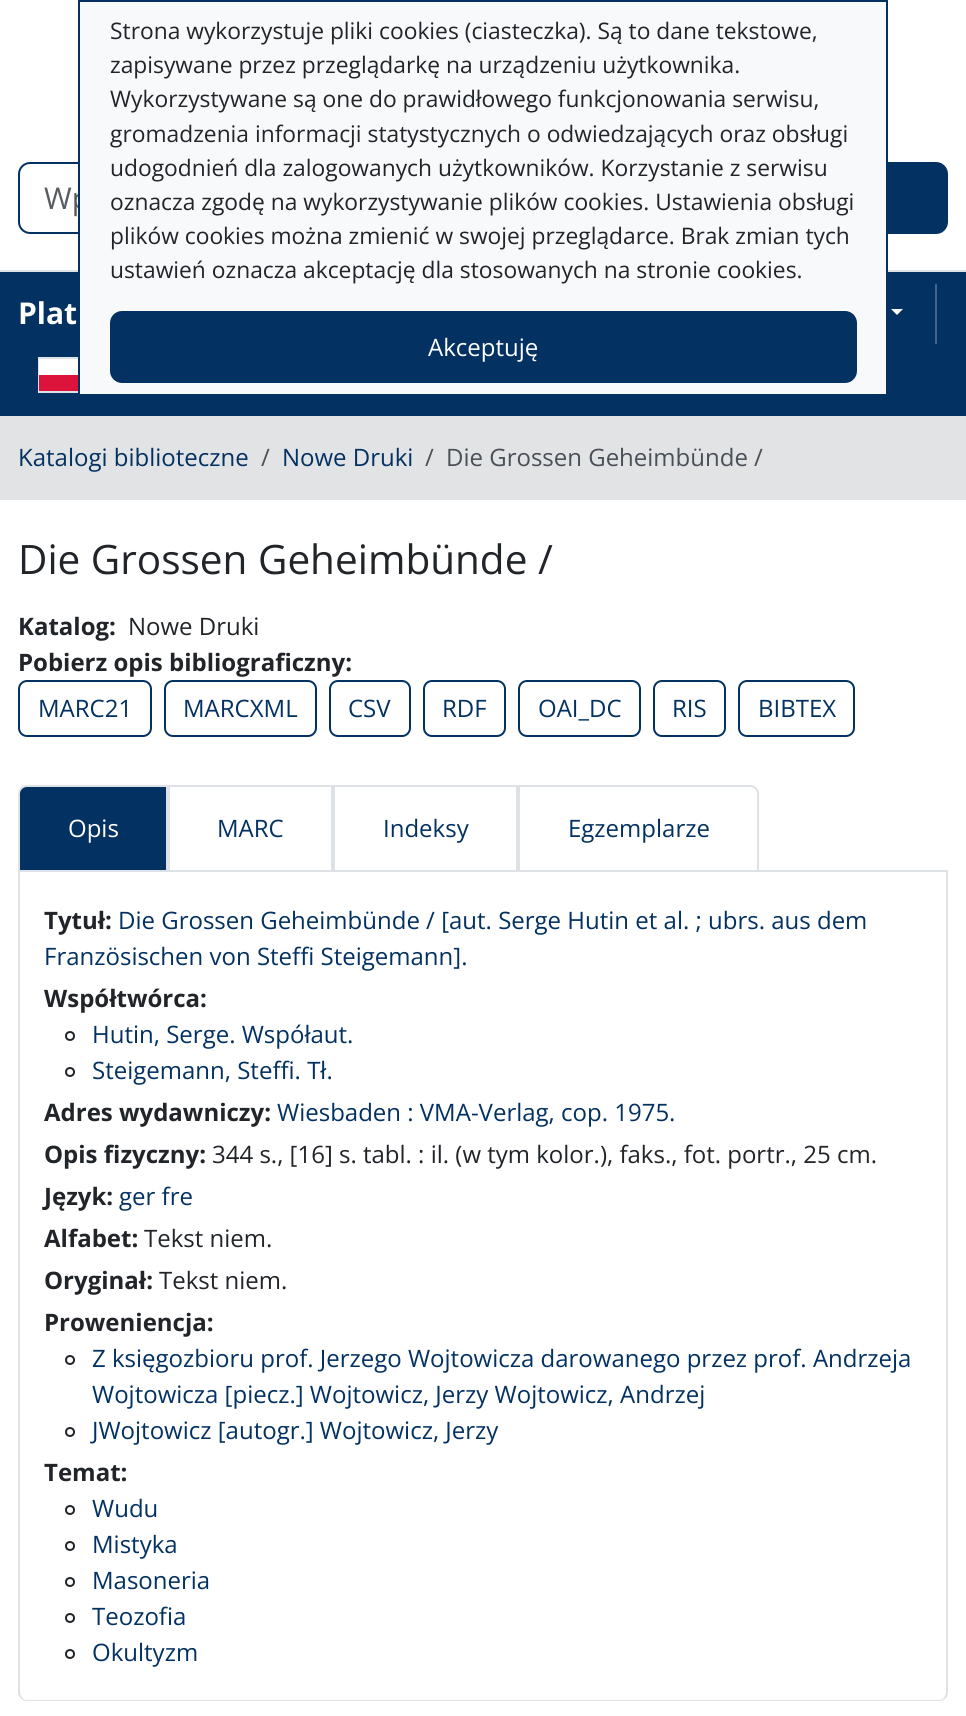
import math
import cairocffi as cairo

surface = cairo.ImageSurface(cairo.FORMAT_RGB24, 966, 1716)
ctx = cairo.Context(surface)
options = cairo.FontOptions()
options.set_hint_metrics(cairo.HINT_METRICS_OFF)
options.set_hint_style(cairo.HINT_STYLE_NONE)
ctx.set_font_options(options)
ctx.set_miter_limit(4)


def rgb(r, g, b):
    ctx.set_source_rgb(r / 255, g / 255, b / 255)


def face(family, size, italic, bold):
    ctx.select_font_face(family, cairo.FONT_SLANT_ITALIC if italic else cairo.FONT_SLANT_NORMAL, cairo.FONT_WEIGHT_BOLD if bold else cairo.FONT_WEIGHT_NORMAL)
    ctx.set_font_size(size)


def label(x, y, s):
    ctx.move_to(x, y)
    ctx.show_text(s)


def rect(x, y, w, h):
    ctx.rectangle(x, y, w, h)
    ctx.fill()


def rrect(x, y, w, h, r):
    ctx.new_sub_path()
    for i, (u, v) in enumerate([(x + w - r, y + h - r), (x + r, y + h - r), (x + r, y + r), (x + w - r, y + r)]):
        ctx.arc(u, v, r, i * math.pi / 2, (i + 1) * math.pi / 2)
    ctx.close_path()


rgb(255, 255, 255)
ctx.paint()
rgb(222, 226, 230)
rect(0, 270, 966, 2)
ctx.new_path()
ctx.move_to(30, 163)
ctx.line_to(647, 163)
ctx.line_to(647, 233)
ctx.line_to(30, 233)
ctx.curve_to(24, 233, 19, 228, 19, 222)
ctx.line_to(19, 174)
ctx.curve_to(19, 168, 24, 163, 30, 163)
ctx.close_path()
rgb(3, 49, 97)
ctx.stroke()
face('Open Sans', 30, 0, 0)
rgb(89, 92, 95)
label(44, 209, 'Wp')
rgb(3, 49, 97)
rrect(723, 163, 224, 70, 11)
ctx.fill_preserve()
ctx.stroke()
rect(0, 272, 966, 144)
ctx.rectangle(39, 358, 52, 34)
rgb(222, 226, 230)
ctx.stroke()
rgb(248, 249, 250)
ctx.rectangle(79, 1, 808, 394)
ctx.fill_preserve()
rgb(3, 49, 97)
ctx.stroke()
face('Open Sans', 22.8, 0, 0)
rgb(33, 37, 41)
label(110, 39, 'Strona wykorzystuje pliki cookies (ciasteczka). Są to dane tekstowe,')
label(110, 73, 'zapisywane przez przeglądarkę na urządzeniu użytkownika.')
label(110, 107, 'Wykorzystywane są one do prawidłowego funkcjonowania serwisu,')
label(110, 142, 'gromadzenia informacji statystycznych o odwiedzających oraz obsługi')
label(110, 176, 'udogodnień dla zalogowanych użytkowników. Korzystanie z serwisu')
label(110, 210, 'oznacza zgodę na wykorzystywanie plików cookies. Ustawienia obsługi')
label(110, 244, 'plików cookies można zmienić w swojej przeglądarce. Brak zmian tych')
label(110, 278, 'ustawień oznacza akceptację dla stosowanych na stronie cookies.')
rgb(3, 49, 97)
rrect(111, 312, 745, 70, 11)
ctx.fill_preserve()
ctx.stroke()
face('Open Sans', 24, 0, 0)
rgb(255, 255, 255)
label(428, 356, 'Akceptuję')
face('Open Sans', 30, 0, 1)
label(18, 324, 'Plat')
ctx.new_path()
ctx.move_to(891, 309)
ctx.line_to(903, 309)
ctx.line_to(897, 315)
ctx.close_path()
ctx.fill()
rgb(66, 101, 137)
rect(935, 284, 2, 60)
rgb(255, 255, 255)
rect(39, 359, 39, 16)
rgb(220, 20, 60)
rect(39, 375, 39, 16)
rgb(226, 227, 229)
rect(0, 416, 966, 84)
face('Open Sans', 24, 0, 0)
rgb(3, 49, 97)
label(18, 466, 'Katalogi biblioteczne')
rgb(73, 80, 87)
label(261, 466, '/')
rgb(3, 49, 97)
label(282, 466, 'Nowe Druki')
rgb(73, 80, 87)
label(425, 466, '/')
label(446, 466, 'Die Grossen Geheimbünde /')
face('Open Sans', 40.5, 0, 0)
rgb(33, 37, 41)
label(18, 574, 'Die Grossen Geheimbünde /')
face('Open Sans', 24, 0, 1)
label(18, 635, 'Katalog:')
face('Open Sans', 24, 0, 0)
label(128, 635, 'Nowe Druki')
face('Open Sans', 24, 0, 1)
label(18, 671, 'Pobierz opis bibliograficzny:')
rrect(19, 681, 132, 55, 8)
rgb(3, 49, 97)
ctx.stroke()
face('Open Sans', 24, 0, 0)
label(38, 717, 'MARC21')
rrect(165, 681, 151, 55, 8)
ctx.stroke()
label(183, 717, 'MARCXML')
rrect(330, 681, 80, 55, 8)
ctx.stroke()
label(348, 717, 'CSV')
rrect(424, 681, 81, 55, 8)
ctx.stroke()
label(442, 717, 'RDF')
rrect(519, 681, 121, 55, 8)
ctx.stroke()
label(538, 717, 'OAI_DC')
rrect(654, 681, 71, 55, 8)
ctx.stroke()
label(672, 717, 'RIS')
rrect(739, 681, 115, 55, 8)
ctx.stroke()
label(758, 717, 'BIBTEX')
rgb(222, 226, 230)
rect(759, 870, 189, 2)
rgb(3, 49, 97)
ctx.new_path()
ctx.move_to(27, 786)
ctx.line_to(167, 786)
ctx.line_to(167, 871)
ctx.line_to(19, 871)
ctx.line_to(19, 794)
ctx.curve_to(19, 789.5, 22.5, 786, 27, 786)
ctx.close_path()
ctx.fill_preserve()
rgb(222, 226, 230)
ctx.stroke()
rgb(255, 255, 255)
label(68, 837, 'Opis')
ctx.rectangle(169, 786, 163, 85)
rgb(222, 226, 230)
ctx.stroke()
rgb(3, 49, 97)
label(217, 837, 'MARC')
ctx.rectangle(334, 786, 183, 85)
rgb(222, 226, 230)
ctx.stroke()
rgb(3, 49, 97)
label(383, 837, 'Indeksy')
ctx.new_path()
ctx.move_to(519, 786)
ctx.line_to(750, 786)
ctx.curve_to(754.5, 786, 758, 789.5, 758, 794)
ctx.line_to(758, 871)
ctx.line_to(519, 871)
ctx.close_path()
rgb(222, 226, 230)
ctx.stroke()
rgb(3, 49, 97)
label(568, 837, 'Egzemplarze')
rgb(222, 226, 230)
ctx.set_fill_rule(cairo.FILL_RULE_EVEN_ODD)
ctx.new_path()
ctx.move_to(18, 872)
ctx.line_to(948, 872)
ctx.line_to(948, 1692)
ctx.curve_to(948, 1697, 944, 1701, 939, 1701)
ctx.line_to(27, 1701)
ctx.curve_to(22, 1701, 18, 1697, 18, 1692)
ctx.close_path()
ctx.move_to(20, 872)
ctx.line_to(946, 872)
ctx.line_to(946, 1692)
ctx.curve_to(946, 1696, 943, 1700, 939, 1700)
ctx.line_to(27, 1700)
ctx.curve_to(23, 1700, 20, 1696, 20, 1692)
ctx.close_path()
ctx.fill()
face('Open Sans', 24, 0, 1)
rgb(33, 37, 41)
label(44, 929, 'Tytuł:')
face('Open Sans', 24, 0, 0)
rgb(3, 49, 97)
label(118, 929, 'Die Grossen Geheimbünde / [aut. Serge Hutin et al. ; ubrs. aus dem')
label(44, 965, 'Französischen von Steffi Steigemann].')
face('Open Sans', 24, 0, 1)
rgb(33, 37, 41)
label(44, 1007, 'Współtwórca:')
ctx.new_path()
ctx.arc(70, 1036, 4, 0, 2 * math.pi)
ctx.stroke()
face('Open Sans', 24, 0, 0)
rgb(3, 49, 97)
label(92, 1043, 'Hutin, Serge. Współaut.')
ctx.new_path()
ctx.arc(70, 1072, 4, 0, 2 * math.pi)
rgb(33, 37, 41)
ctx.stroke()
rgb(3, 49, 97)
label(92, 1079, 'Steigemann, Steffi. Tł.')
face('Open Sans', 24, 0, 1)
rgb(33, 37, 41)
label(44, 1121, 'Adres wydawniczy:')
face('Open Sans', 24, 0, 0)
rgb(3, 49, 97)
label(277, 1121, 'Wiesbaden : VMA-Verlag, cop. 1975.')
face('Open Sans', 24, 0, 1)
rgb(33, 37, 41)
label(44, 1163, 'Opis fizyczny:')
face('Open Sans', 24, 0, 0)
label(212, 1163, '344 s., [16] s. tabl. : il. (w tym kolor.), faks., fot. portr., 25 cm.')
face('Open Sans', 24, 0, 1)
label(44, 1205, 'Język:')
face('Open Sans', 24, 0, 0)
rgb(3, 49, 97)
label(119, 1205, 'ger fre')
face('Open Sans', 24, 0, 1)
rgb(33, 37, 41)
label(44, 1247, 'Alfabet:')
face('Open Sans', 24, 0, 0)
label(144, 1247, 'Tekst niem.')
face('Open Sans', 24, 0, 1)
label(44, 1289, 'Oryginał:')
face('Open Sans', 24, 0, 0)
label(159, 1289, 'Tekst niem.')
face('Open Sans', 24, 0, 1)
label(44, 1331, 'Proweniencja:')
ctx.new_path()
ctx.arc(70, 1360, 4, 0, 2 * math.pi)
ctx.stroke()
face('Open Sans', 24, 0, 0)
rgb(3, 49, 97)
label(92, 1367, 'Z księgozbioru prof. Jerzego Wojtowicza darowanego przez prof. Andrzeja')
label(92, 1403, 'Wojtowicza [piecz.] Wojtowicz, Jerzy Wojtowicz, Andrzej')
ctx.new_path()
ctx.arc(70, 1432, 4, 0, 2 * math.pi)
rgb(33, 37, 41)
ctx.stroke()
rgb(3, 49, 97)
label(92, 1439, 'JWojtowicz [autogr.] Wojtowicz, Jerzy')
face('Open Sans', 24, 0, 1)
rgb(33, 37, 41)
label(44, 1481, 'Temat:')
ctx.new_path()
ctx.arc(70, 1510, 4, 0, 2 * math.pi)
ctx.stroke()
face('Open Sans', 24, 0, 0)
rgb(3, 49, 97)
label(92, 1517, 'Wudu')
ctx.new_path()
ctx.arc(70, 1546, 4, 0, 2 * math.pi)
rgb(33, 37, 41)
ctx.stroke()
rgb(3, 49, 97)
label(92, 1553, 'Mistyka')
ctx.new_path()
ctx.arc(70, 1582, 4, 0, 2 * math.pi)
rgb(33, 37, 41)
ctx.stroke()
rgb(3, 49, 97)
label(92, 1589, 'Masoneria')
ctx.new_path()
ctx.arc(70, 1618, 4, 0, 2 * math.pi)
rgb(33, 37, 41)
ctx.stroke()
rgb(3, 49, 97)
label(92, 1625, 'Teozofia')
ctx.new_path()
ctx.arc(70, 1654, 4, 0, 2 * math.pi)
rgb(33, 37, 41)
ctx.stroke()
rgb(3, 49, 97)
label(92, 1661, 'Okultyzm')
surface.write_to_png('render.png')
